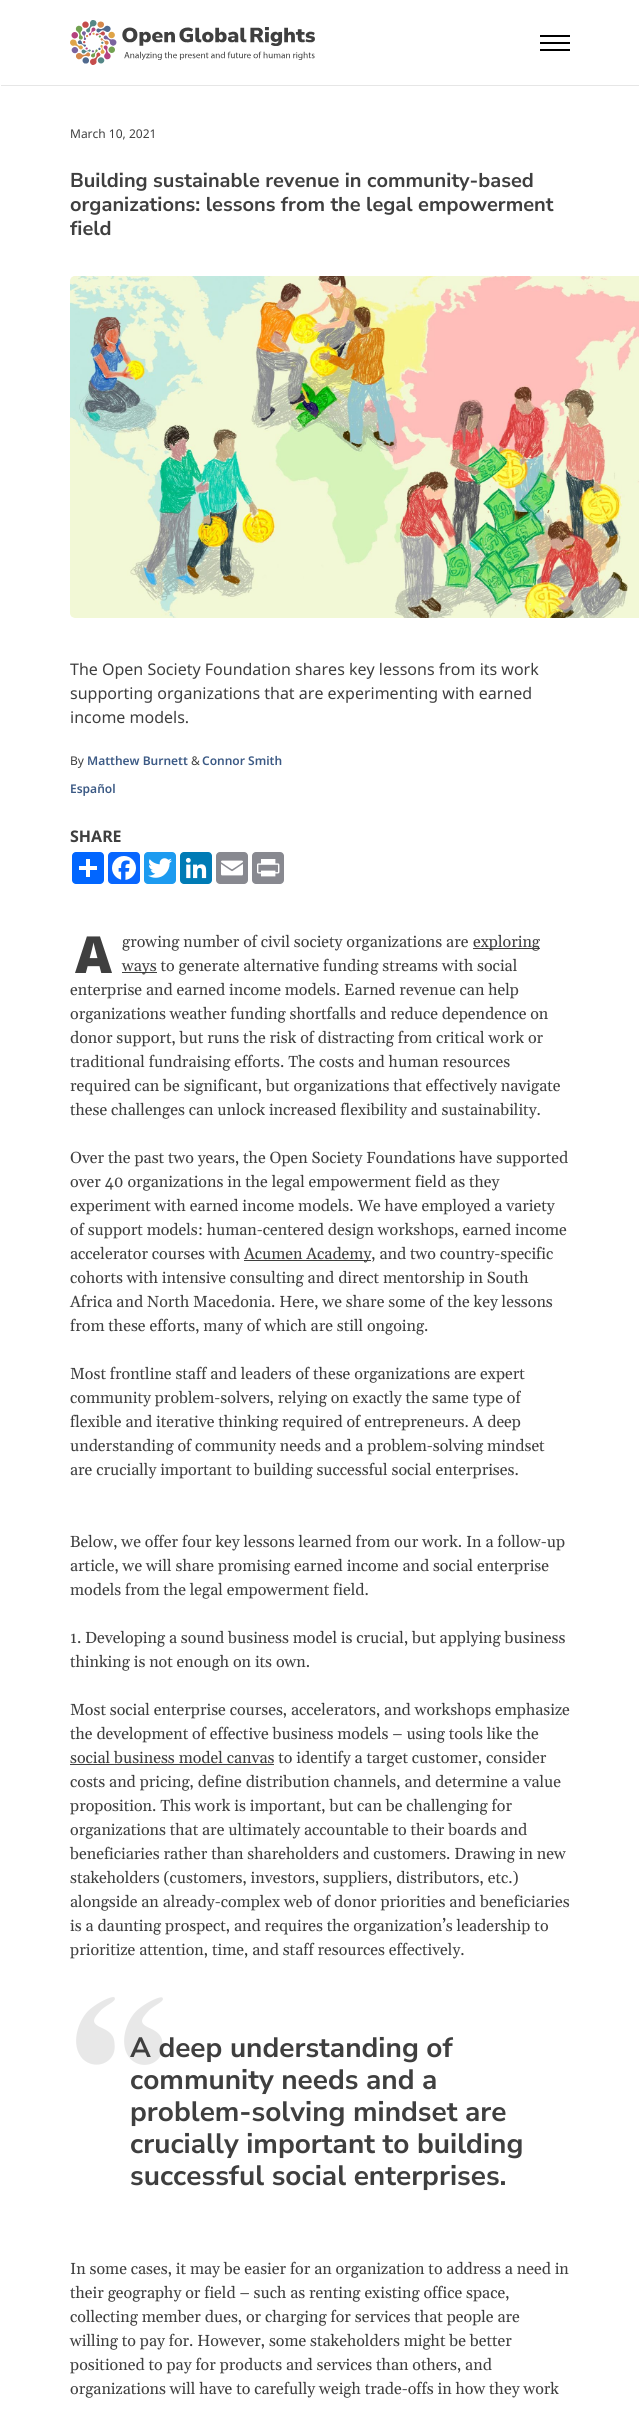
import math
import cairocffi as cairo

surface = cairo.ImageSurface(cairo.FORMAT_RGB24, 639, 2413)
ctx = cairo.Context(surface)
options = cairo.FontOptions()
options.set_hint_metrics(cairo.HINT_METRICS_OFF)
options.set_hint_style(cairo.HINT_STYLE_NONE)
ctx.set_font_options(options)
ctx.set_miter_limit(4)


def rgb(r, g, b):
    ctx.set_source_rgb(r / 255, g / 255, b / 255)


def face(family, size, italic, bold):
    ctx.select_font_face(family, cairo.FONT_SLANT_ITALIC if italic else cairo.FONT_SLANT_NORMAL, cairo.FONT_WEIGHT_BOLD if bold else cairo.FONT_WEIGHT_NORMAL)
    ctx.set_font_size(size)


def label(x, y, s):
    ctx.move_to(x, y)
    ctx.show_text(s)


def rect(x, y, w, h):
    ctx.rectangle(x, y, w, h)
    ctx.fill()


def rrect(x, y, w, h, r):
    ctx.new_sub_path()
    for i, (u, v) in enumerate([(x + w - r, y + h - r), (x + r, y + h - r), (x + r, y + r), (x + w - r, y + r)]):
        ctx.arc(u, v, r, i * math.pi / 2, (i + 1) * math.pi / 2)
    ctx.close_path()


def image(path, x, y, w, h):
    ctx.save()
    ctx.set_source_surface(cairo.ImageSurface.create_from_png(path), x, y)
    ctx.rectangle(x, y, w, h)
    ctx.fill()
    ctx.restore()


rgb(255, 255, 255)
ctx.paint()
image('image0.png', 70, 20, 245, 45)
rgb(0, 0, 0)
rect(540, 35, 30, 2)
rect(540, 42, 30, 2)
rect(540, 49, 30, 2)
rgb(230, 230, 230)
rect(1, 85, 638, 1)
face('Noto Sans', 12, 0, 0)
rgb(63, 63, 63)
label(70, 138, 'March 10, 2021')
face('Nunito Sans', 20, 0, 1)
label(70, 187, 'Building sustainable revenue in community-based')
label(70, 211, 'organizations: lessons from the legal empowerment')
label(70, 235, 'field')
image('image1.png', 70, 276, 569, 342)
face('Noto Sans', 16, 0, 0)
label(70, 675, 'The Open Society Foundation shares key lessons from its work')
label(70, 699, 'supporting organizations that are experimenting with earned')
label(70, 723, 'income models.')
face('Noto Sans', 12, 0, 0)
label(70, 765, 'By')
face('Noto Sans SemiBold', 12, 0, 0)
rgb(60, 90, 133)
label(87, 765, 'Matthew Burnett')
face('Noto Sans', 12, 0, 0)
rgb(63, 63, 63)
label(191, 765, '&')
face('Noto Sans SemiBold', 12, 0, 0)
rgb(60, 90, 133)
label(202, 765, 'Connor Smith')
label(70, 793, 'Español')
face('Noto Sans', 16, 0, 1)
rgb(63, 63, 63)
label(70, 842, 'SHARE')
rgb(1, 102, 255)
rrect(72, 852, 32, 32, 4)
ctx.fill()
rgb(255, 255, 255)
rect(86, 859, 4, 18)
rect(79, 866, 18, 4)
rgb(8, 102, 255)
rrect(108, 852, 32, 32, 4)
ctx.fill()
image('image2.png', 112, 856, 24, 24)
rgb(29, 155, 240)
rrect(144, 852, 32, 32, 4)
ctx.fill()
image('image3.png', 148, 858, 24, 20)
rgb(0, 123, 181)
rrect(180, 852, 32, 32, 4)
ctx.fill()
image('image4.png', 185, 857, 22, 22)
rgb(136, 137, 144)
rrect(216, 852, 32, 32, 4)
ctx.fill()
image('image5.png', 221, 860, 22, 16)
rrect(252, 852, 32, 32, 4)
ctx.fill()
image('image6.png', 257, 859, 23, 18)
face('Noto Sans Black', 51, 0, 0)
rgb(63, 63, 63)
label(75, 973, 'A')
face('Gelasio', 16, 0, 0)
label(122, 947, 'growing number of civil society organizations are')
rect(473, 948, 67, 1)
label(473, 947, 'exploring')
rect(122, 972, 35, 1)
label(122, 971, 'ways to generate alternative funding streams with social')
label(70, 995, 'enterprise and earned income models. Earned revenue can help')
label(70, 1019, 'organizations weather funding shortfalls and reduce dependence on')
label(70, 1043, 'donor support, but runs the risk of distracting from critical work or')
label(70, 1067, 'traditional fundraising efforts. The costs and human resources')
label(70, 1091, 'required can be significant, but organizations that effectively navigate')
label(70, 1115, 'these challenges can unlock increased flexibility and sustainability.')
label(70, 1163, 'Over the past two years, the Open Society Foundations have supported')
label(70, 1187, 'over 40 organizations in the legal empowerment field as they')
label(70, 1211, 'experiment with earned income models. We have employed a variety')
label(70, 1235, 'of support models: human-centered design workshops, earned income')
label(70, 1259, 'accelerator courses with')
rect(244, 1260, 127, 1)
label(244, 1259, 'Acumen Academy, and two country-specific')
label(70, 1283, 'cohorts with intensive consulting and direct mentorship in South')
label(70, 1307, 'Africa and North Macedonia. Here, we share some of the key lessons')
label(70, 1331, 'from these efforts, many of which are still ongoing.')
label(70, 1379, 'Most frontline staff and leaders of these organizations are expert')
label(70, 1403, 'community problem-solvers, relying on exactly the same type of')
label(70, 1427, 'flexible and iterative thinking required of entrepreneurs. A deep')
label(70, 1451, 'understanding of community needs and a problem-solving mindset')
label(70, 1475, 'are crucially important to building successful social enterprises.')
label(70, 1547, 'Below, we offer four key lessons learned from our work. In a follow-up')
label(70, 1571, 'article, we will share promising earned income and social enterprise')
label(70, 1595, 'models from the legal empowerment field.')
label(70, 1643, '1. Developing a sound business model is crucial, but applying business')
label(70, 1667, 'thinking is not enough on its own.')
label(70, 1715, 'Most social enterprise courses, accelerators, and workshops emphasize')
label(70, 1739, 'the development of effective business models – using tools like the')
rect(70, 1764, 204, 1)
label(70, 1763, 'social business model canvas to identify a target customer, consider')
label(70, 1787, 'costs and pricing, define distribution channels, and determine a value')
label(70, 1811, 'proposition. This work is important, but can be challenging for')
label(70, 1835, 'organizations that are ultimately accountable to their boards and')
label(70, 1859, 'beneficiaries rather than shareholders and customers. Drawing in new')
label(70, 1883, 'stakeholders (customers, investors, suppliers, distributors, etc.)')
label(70, 1907, 'alongside an already-complex web of donor priorities and beneficiaries')
label(70, 1931, 'is a daunting prospect, and requires the organization’s leadership to')
label(70, 1955, 'prioritize attention, time, and staff resources effectively.')
image('image7.png', 76, 1997, 87, 68)
face('Nunito Sans', 28, 0, 1)
label(130, 2057, 'A deep understanding of')
label(130, 2089, 'community needs and a')
label(130, 2121, 'problem-solving mindset are')
label(130, 2153, 'crucially important to building')
label(130, 2185, 'successful social enterprises.')
face('Gelasio', 16, 0, 0)
label(70, 2274, 'In some cases, it may be easier for an organization to address a need in')
label(70, 2298, 'their geography or field – such as renting existing office space,')
label(70, 2322, 'collecting member dues, or charging for services that people are')
label(70, 2346, 'willing to pay for. However, some stakeholders might be better')
label(70, 2370, 'positioned to pay for products and services than others, and')
label(70, 2394, 'organizations will have to carefully weigh trade-offs in how they work')
surface.write_to_png('render.png')
